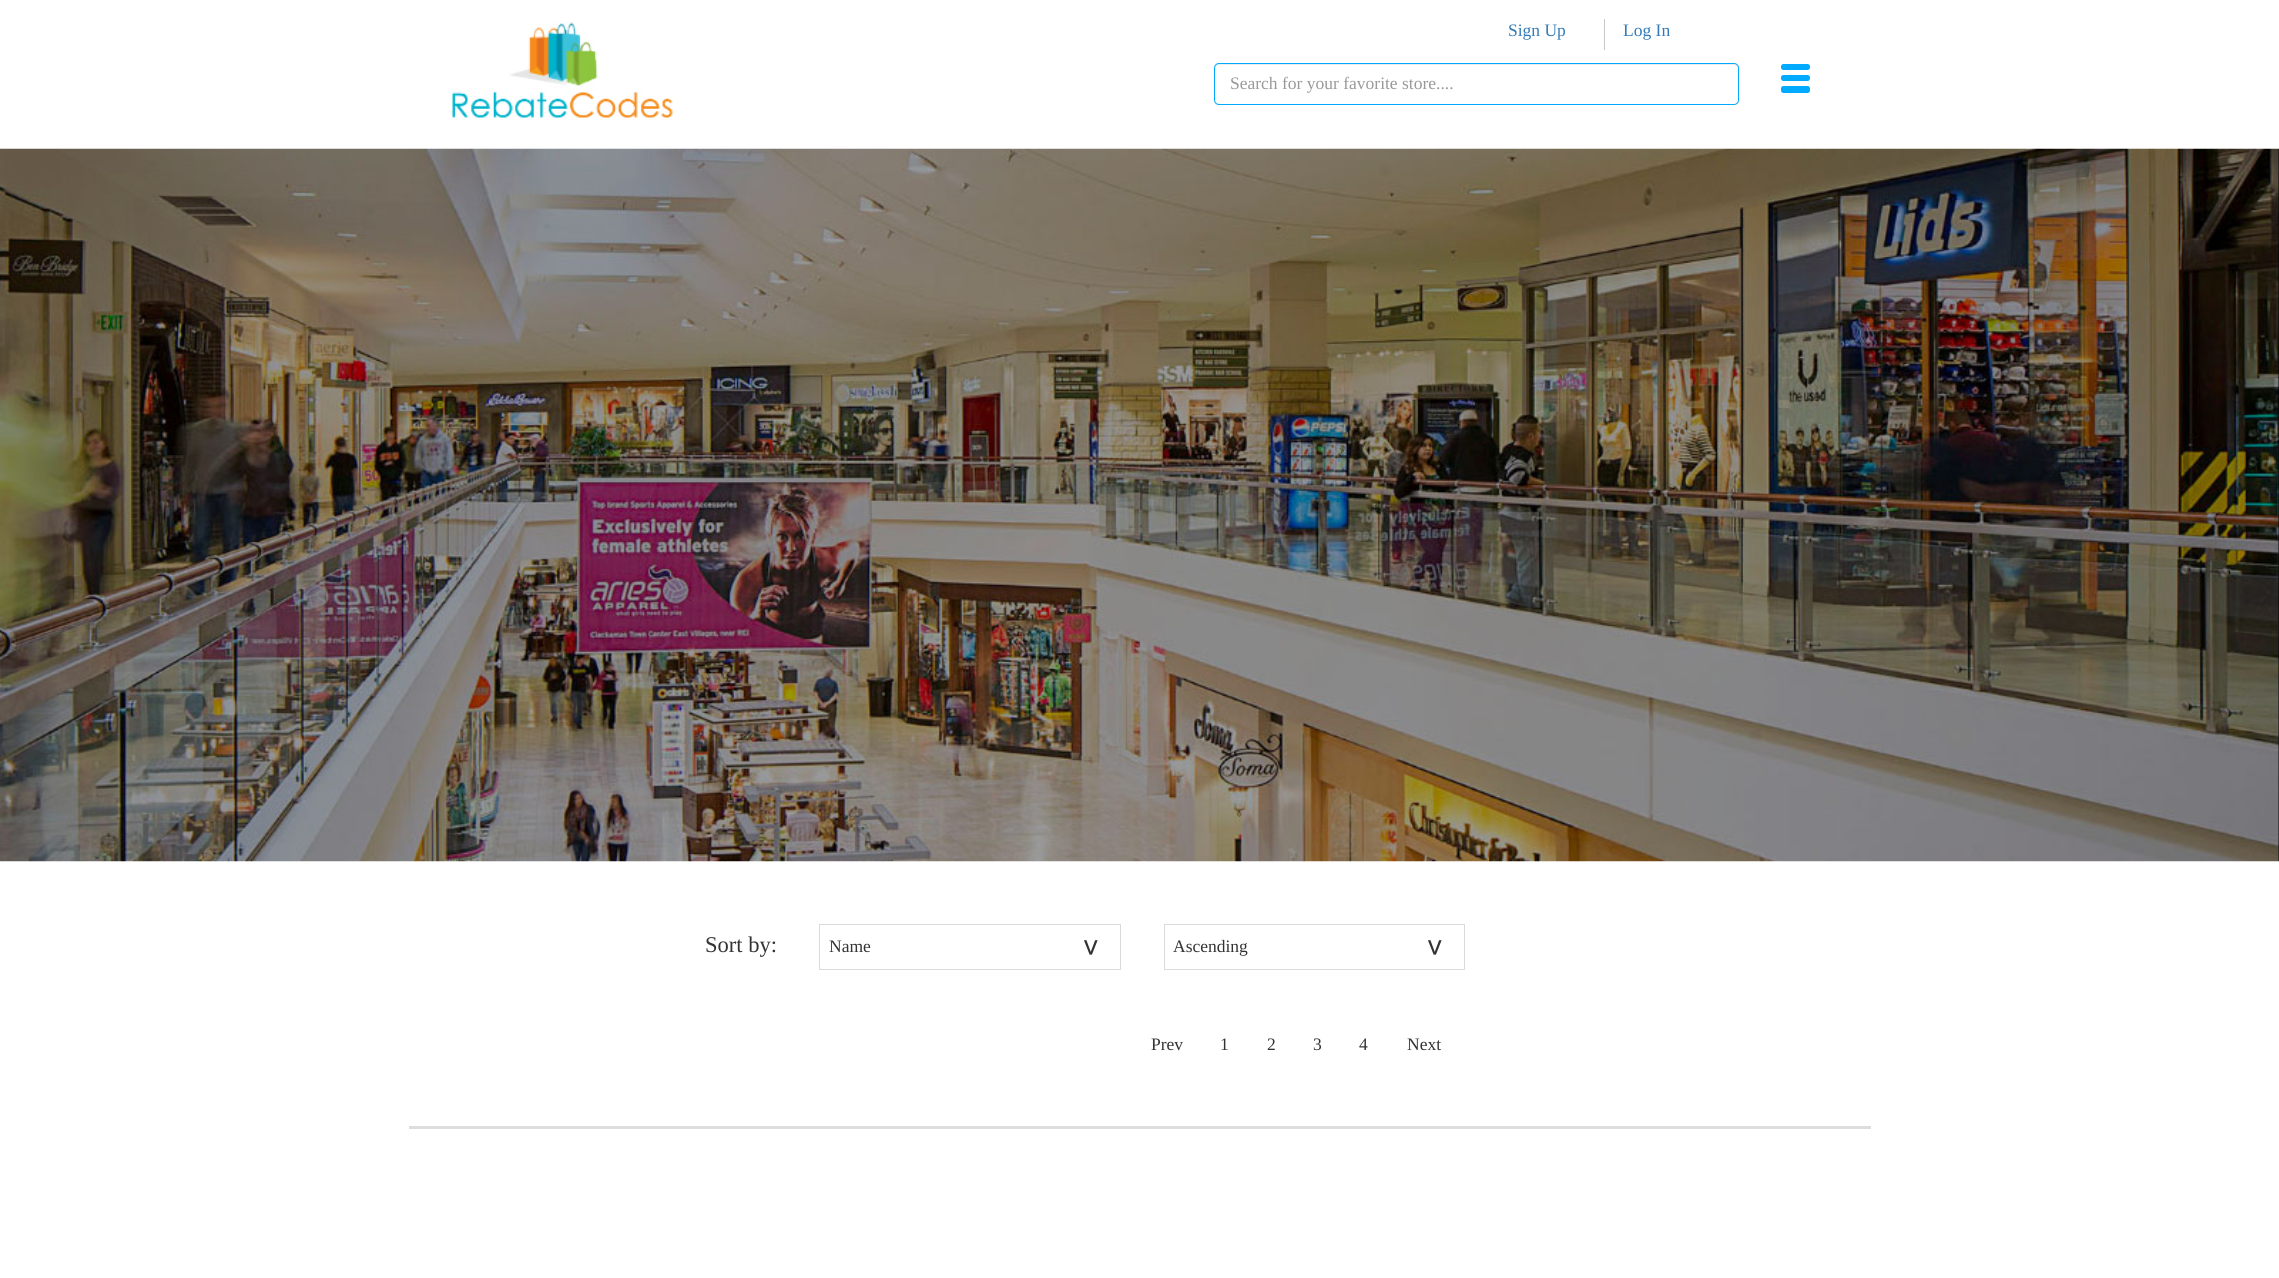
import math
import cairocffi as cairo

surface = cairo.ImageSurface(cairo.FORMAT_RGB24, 2279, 1278)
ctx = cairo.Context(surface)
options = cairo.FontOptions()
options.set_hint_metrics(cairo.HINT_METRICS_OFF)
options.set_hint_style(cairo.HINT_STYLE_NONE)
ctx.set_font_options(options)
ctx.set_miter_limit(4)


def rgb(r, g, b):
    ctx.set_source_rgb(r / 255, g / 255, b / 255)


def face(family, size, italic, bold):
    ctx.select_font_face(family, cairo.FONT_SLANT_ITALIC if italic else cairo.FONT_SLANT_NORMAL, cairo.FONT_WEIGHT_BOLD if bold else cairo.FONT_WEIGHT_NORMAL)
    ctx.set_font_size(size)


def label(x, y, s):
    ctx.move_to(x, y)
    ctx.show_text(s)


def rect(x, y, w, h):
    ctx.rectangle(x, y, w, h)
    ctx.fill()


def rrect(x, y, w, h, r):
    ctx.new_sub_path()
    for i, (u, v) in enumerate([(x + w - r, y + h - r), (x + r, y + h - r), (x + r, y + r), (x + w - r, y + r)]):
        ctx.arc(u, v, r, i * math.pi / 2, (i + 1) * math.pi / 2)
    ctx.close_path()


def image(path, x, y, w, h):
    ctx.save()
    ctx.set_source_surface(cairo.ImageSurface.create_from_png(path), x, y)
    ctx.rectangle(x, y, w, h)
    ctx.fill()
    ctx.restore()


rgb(255, 255, 255)
ctx.paint()
image('image0.png', 452, 22, 221, 96)
rgb(199, 199, 199)
rect(1604, 19, 1, 31)
face('Liberation Serif', 17.5, 0, 0)
rgb(51, 122, 183)
label(1508, 36, 'Sign Up')
label(1623, 36, 'Log In')
rgb(236, 236, 236)
ctx.new_path()
ctx.move_to(1219, 65)
ctx.line_to(1734, 65)
ctx.curve_to(1736, 65, 1738, 67, 1738, 69)
ctx.line_to(1738, 68)
ctx.curve_to(1738, 66, 1736, 64, 1734, 64)
ctx.line_to(1219, 64)
ctx.curve_to(1217, 64, 1215, 66, 1215, 68)
ctx.line_to(1215, 69)
ctx.curve_to(1215, 67, 1217, 65, 1219, 65)
ctx.close_path()
ctx.fill()
rrect(1214.5, 63.5, 524, 41, 4.5)
rgb(0, 170, 255)
ctx.set_line_width(1)
ctx.stroke()
rgb(153, 153, 153)
label(1230, 89, 'Search for your favorite store....')
rgb(0, 170, 255)
rrect(1781, 75, 29, 6, 2.5)
ctx.fill()
rrect(1781, 64, 29, 6, 2.5)
ctx.fill()
rrect(1781, 86, 29, 7, 2.5)
ctx.fill()
image('image1.png', 0, 148, 2279, 714)
face('Liberation Serif', 22.5, 0, 0)
rgb(51, 51, 51)
label(705, 952, 'Sort by:')
ctx.rectangle(819.5, 924.5, 301, 45)
rgb(219, 219, 219)
ctx.stroke()
face('Liberation Serif', 17.5, 0, 0)
rgb(51, 51, 51)
label(829, 952, 'Name')
face('DejaVu Sans Mono', 28, 0, 0)
ctx.save()
ctx.translate(1082, 939)
ctx.rotate(90 * math.pi / 180)
label(0, 0, '>')
ctx.restore()
ctx.rectangle(1164.5, 924.5, 300, 45)
rgb(219, 219, 219)
ctx.stroke()
face('Liberation Serif', 17.5, 0, 0)
rgb(51, 51, 51)
label(1173, 952, 'Ascending')
face('DejaVu Sans Mono', 28, 0, 0)
ctx.save()
ctx.translate(1426, 939)
ctx.rotate(90 * math.pi / 180)
label(0, 0, '>')
ctx.restore()
face('Liberation Serif', 17.5, 0, 0)
label(1151, 1050, 'Prev')
label(1220, 1050, '1')
label(1267, 1050, '2')
label(1313, 1050, '3')
label(1359, 1050, '4')
label(1407, 1050, 'Next')
rgb(221, 221, 221)
rect(409, 1126, 1462, 3)
surface.write_to_png('render.png')
